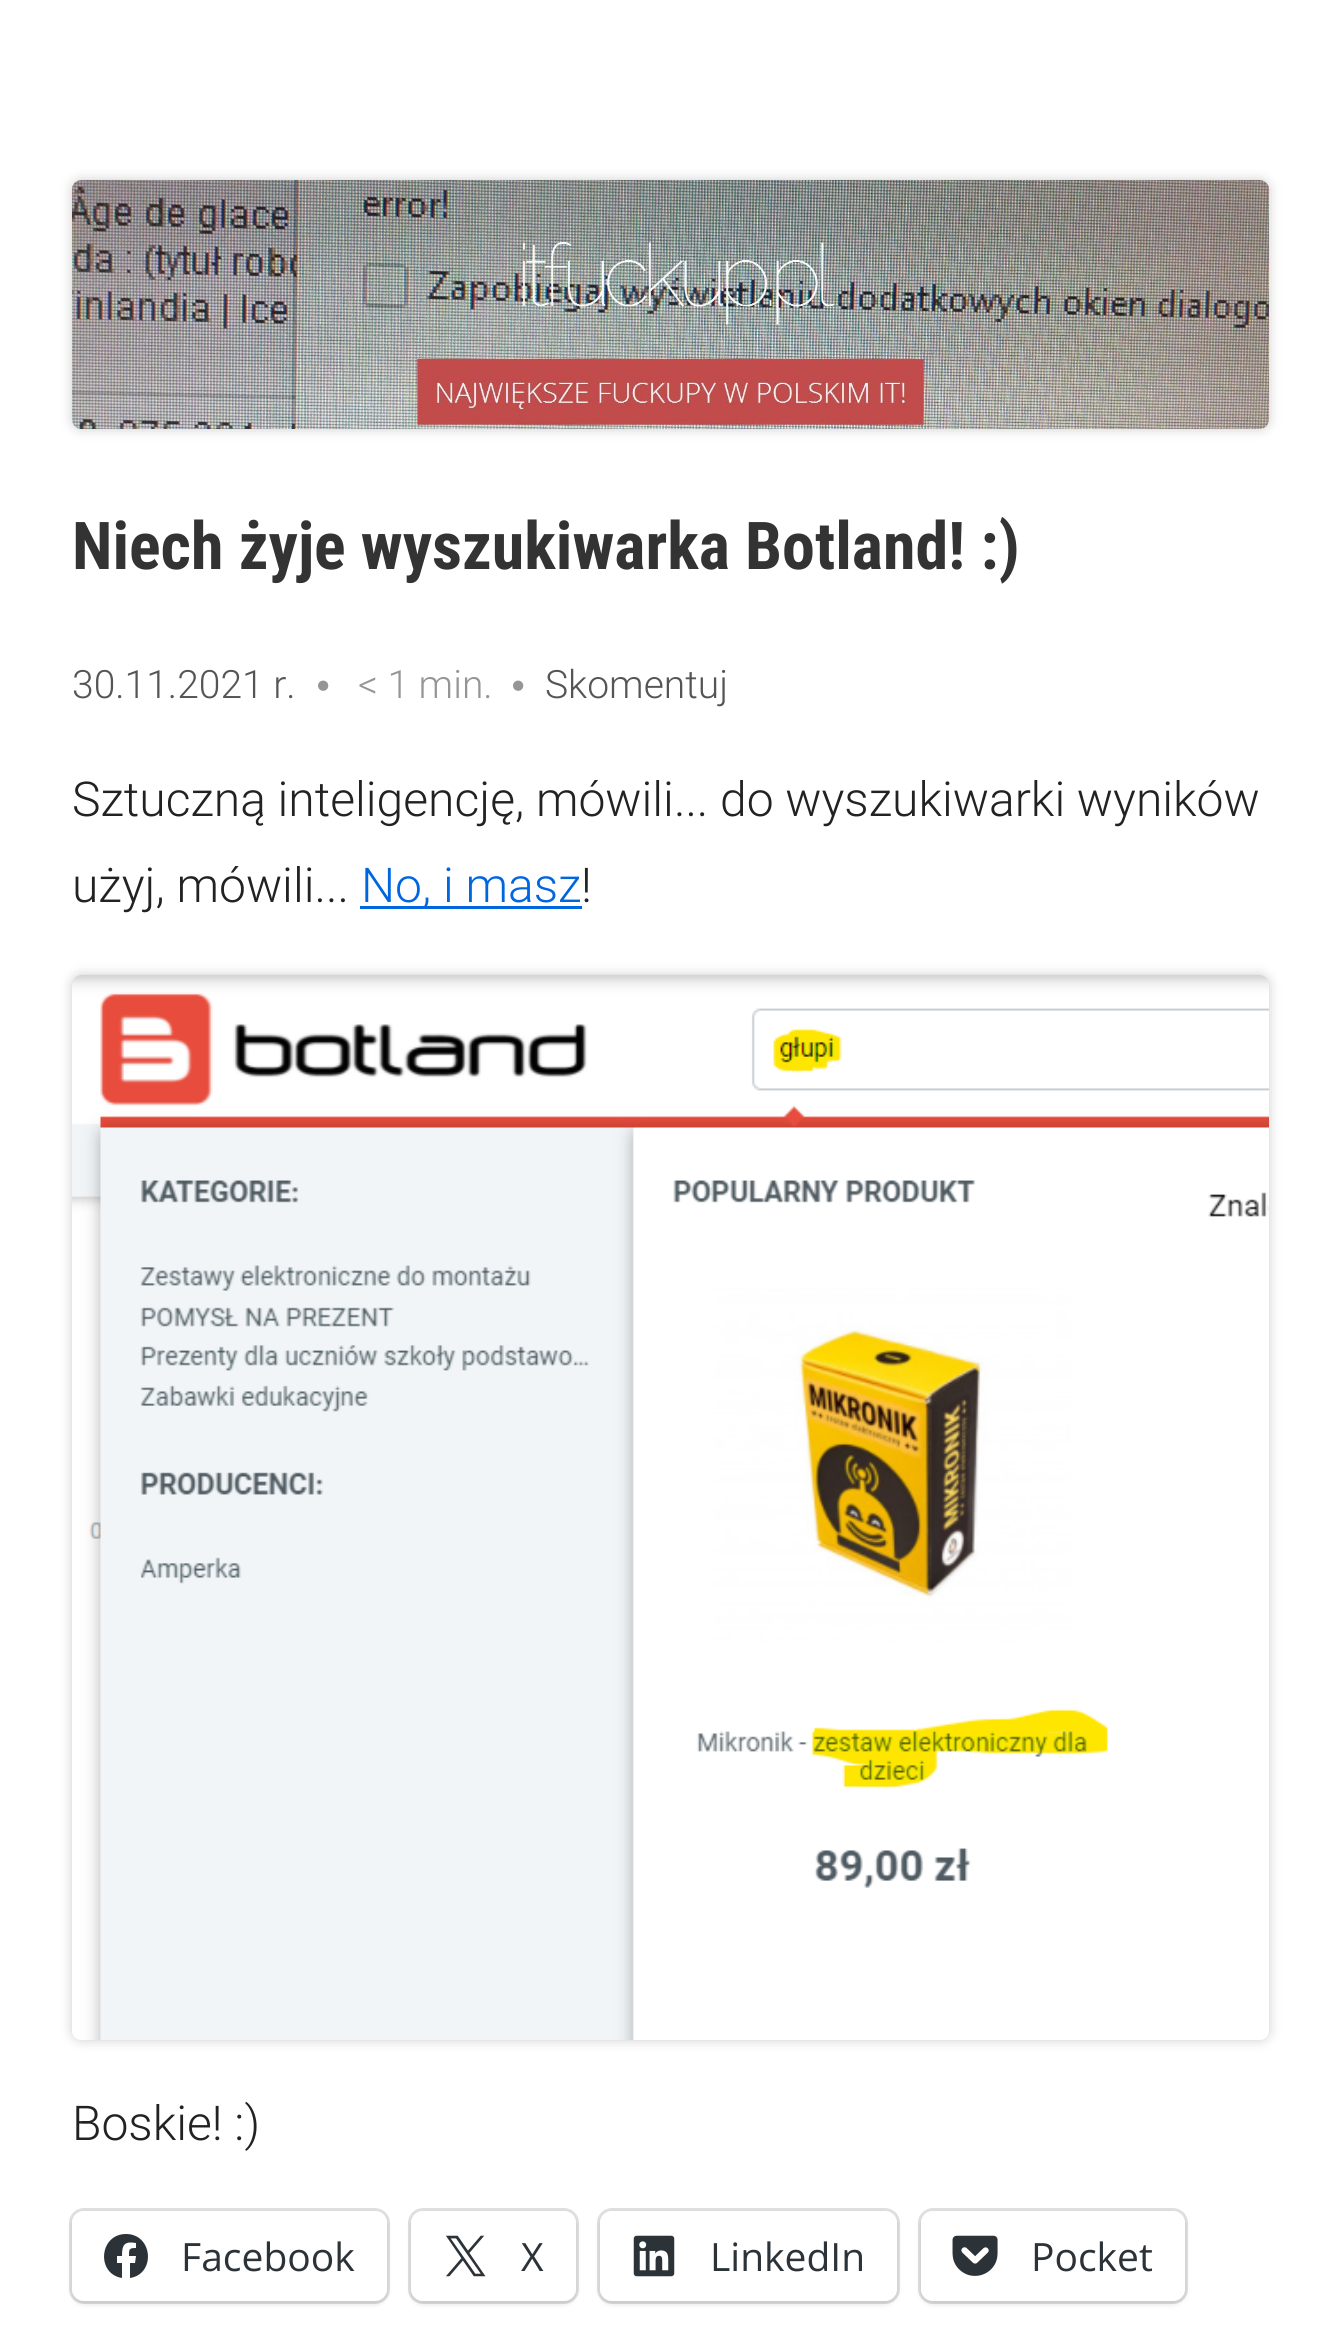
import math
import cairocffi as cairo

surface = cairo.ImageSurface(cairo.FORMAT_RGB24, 1341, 2329)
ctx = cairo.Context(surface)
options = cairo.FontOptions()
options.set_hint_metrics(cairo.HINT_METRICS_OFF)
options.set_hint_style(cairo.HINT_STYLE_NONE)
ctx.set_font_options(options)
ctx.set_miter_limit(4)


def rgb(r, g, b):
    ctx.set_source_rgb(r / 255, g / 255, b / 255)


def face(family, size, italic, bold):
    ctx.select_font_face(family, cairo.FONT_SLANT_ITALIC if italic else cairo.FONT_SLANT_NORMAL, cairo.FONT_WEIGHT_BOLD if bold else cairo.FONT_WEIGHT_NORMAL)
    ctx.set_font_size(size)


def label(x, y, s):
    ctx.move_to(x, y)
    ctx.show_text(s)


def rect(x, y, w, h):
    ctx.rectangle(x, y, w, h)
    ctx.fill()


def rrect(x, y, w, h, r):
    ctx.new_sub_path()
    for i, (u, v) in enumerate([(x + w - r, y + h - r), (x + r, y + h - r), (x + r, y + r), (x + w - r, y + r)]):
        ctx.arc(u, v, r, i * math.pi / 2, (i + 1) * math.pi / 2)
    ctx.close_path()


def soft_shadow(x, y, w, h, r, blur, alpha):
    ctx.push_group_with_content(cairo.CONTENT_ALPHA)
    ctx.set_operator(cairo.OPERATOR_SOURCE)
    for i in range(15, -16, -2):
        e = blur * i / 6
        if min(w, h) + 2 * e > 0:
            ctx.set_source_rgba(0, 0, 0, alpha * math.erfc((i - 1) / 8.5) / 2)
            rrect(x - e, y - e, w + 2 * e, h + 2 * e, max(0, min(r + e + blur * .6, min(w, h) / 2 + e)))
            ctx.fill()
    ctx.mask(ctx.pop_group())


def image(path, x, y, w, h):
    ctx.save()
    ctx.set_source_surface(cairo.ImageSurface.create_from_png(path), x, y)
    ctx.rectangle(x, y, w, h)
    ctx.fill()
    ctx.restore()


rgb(255, 255, 255)
ctx.paint()
rgb(0, 0, 0)
soft_shadow(72, 180, 1197, 249, 9, 6, 0.2)
image('image0.png', 72, 180, 1197, 249)
face('Roboto Condensed', 66, 0, 1)
rgb(51, 51, 51)
label(72, 569, 'Niech żyje wyszukiwarka Botland! :)')
face('Roboto Light', 39, 0, 0)
rgb(85, 85, 85)
label(72, 698, '30.11.2021 r.')
image('image1.png', 318, 680, 11, 11)
rgb(149, 149, 149)
label(358, 698, '< 1 min.')
image('image1.png', 513, 680, 11, 11)
rgb(85, 85, 85)
label(545, 698, 'Skomentuj')
face('Roboto Light', 48, 0, 0)
rgb(34, 34, 34)
label(72, 816, 'Sztuczną inteligencję, mówili... do wyszukiwarki wyników')
label(72, 902, 'użyj, mówili...')
rgb(0, 102, 223)
rect(360, 906, 222, 3)
label(361, 902, 'No, i masz')
rgb(34, 34, 34)
label(581, 902, '!')
rgb(0, 0, 0)
soft_shadow(72, 975, 1197, 1065, 9, 6, 0.2)
image('image2.png', 72, 975, 1197, 1065)
rgb(34, 34, 34)
label(72, 2140, 'Boskie! :)')
rrect(70.5, 2209.5, 318, 93, 13.5)
rgb(224, 224, 224)
ctx.set_line_width(3)
ctx.stroke()
rgb(0, 0, 0)
soft_shadow(72, 2214, 315, 90, 12, 3, 0.12)
rgb(255, 255, 255)
rrect(72, 2211, 315, 90, 12)
ctx.fill()
rgb(44, 51, 56)
ctx.new_path()
ctx.move_to(126, 2234)
ctx.curve_to(99, 2234, 96, 2274, 122, 2278)
ctx.line_to(122, 2263)
ctx.line_to(117, 2263)
ctx.line_to(117, 2256)
ctx.line_to(122, 2256)
ctx.curve_to(122, 2245, 124, 2241, 136, 2243)
ctx.line_to(136, 2248)
ctx.curve_to(129, 2248, 129, 2249, 129, 2256)
ctx.line_to(136, 2256)
ctx.line_to(135, 2263)
ctx.line_to(130, 2263)
ctx.line_to(130, 2278)
ctx.curve_to(156, 2274, 153, 2234, 126, 2234)
ctx.close_path()
ctx.fill()
face('Open Sans', 39, 0, 0)
label(181, 2271, 'Facebook')
rrect(409.5, 2209.5, 168, 93, 13.5)
rgb(224, 224, 224)
ctx.stroke()
rgb(0, 0, 0)
soft_shadow(411, 2214, 165, 90, 12, 3, 0.12)
rgb(255, 255, 255)
rrect(411, 2211, 165, 90, 12)
ctx.fill()
image('image3.png', 446, 2235, 40, 42)
rgb(44, 51, 56)
label(521, 2271, 'X')
rrect(598.5, 2209.5, 300, 93, 13.5)
rgb(224, 224, 224)
ctx.stroke()
rgb(0, 0, 0)
soft_shadow(600, 2214, 297, 90, 12, 3, 0.12)
rgb(255, 255, 255)
rrect(600, 2211, 297, 90, 12)
ctx.fill()
image('image4.png', 633, 2235, 42, 42)
rgb(44, 51, 56)
label(710, 2271, 'LinkedIn')
rrect(919.5, 2209.5, 267, 93, 13.5)
rgb(224, 224, 224)
ctx.stroke()
rgb(0, 0, 0)
soft_shadow(921, 2214, 264, 90, 12, 3, 0.12)
rgb(255, 255, 255)
rrect(921, 2211, 264, 90, 12)
ctx.fill()
image('image5.png', 952, 2235, 46, 41)
rgb(44, 51, 56)
label(1031, 2271, 'Pocket')
surface.write_to_png('render.png')
